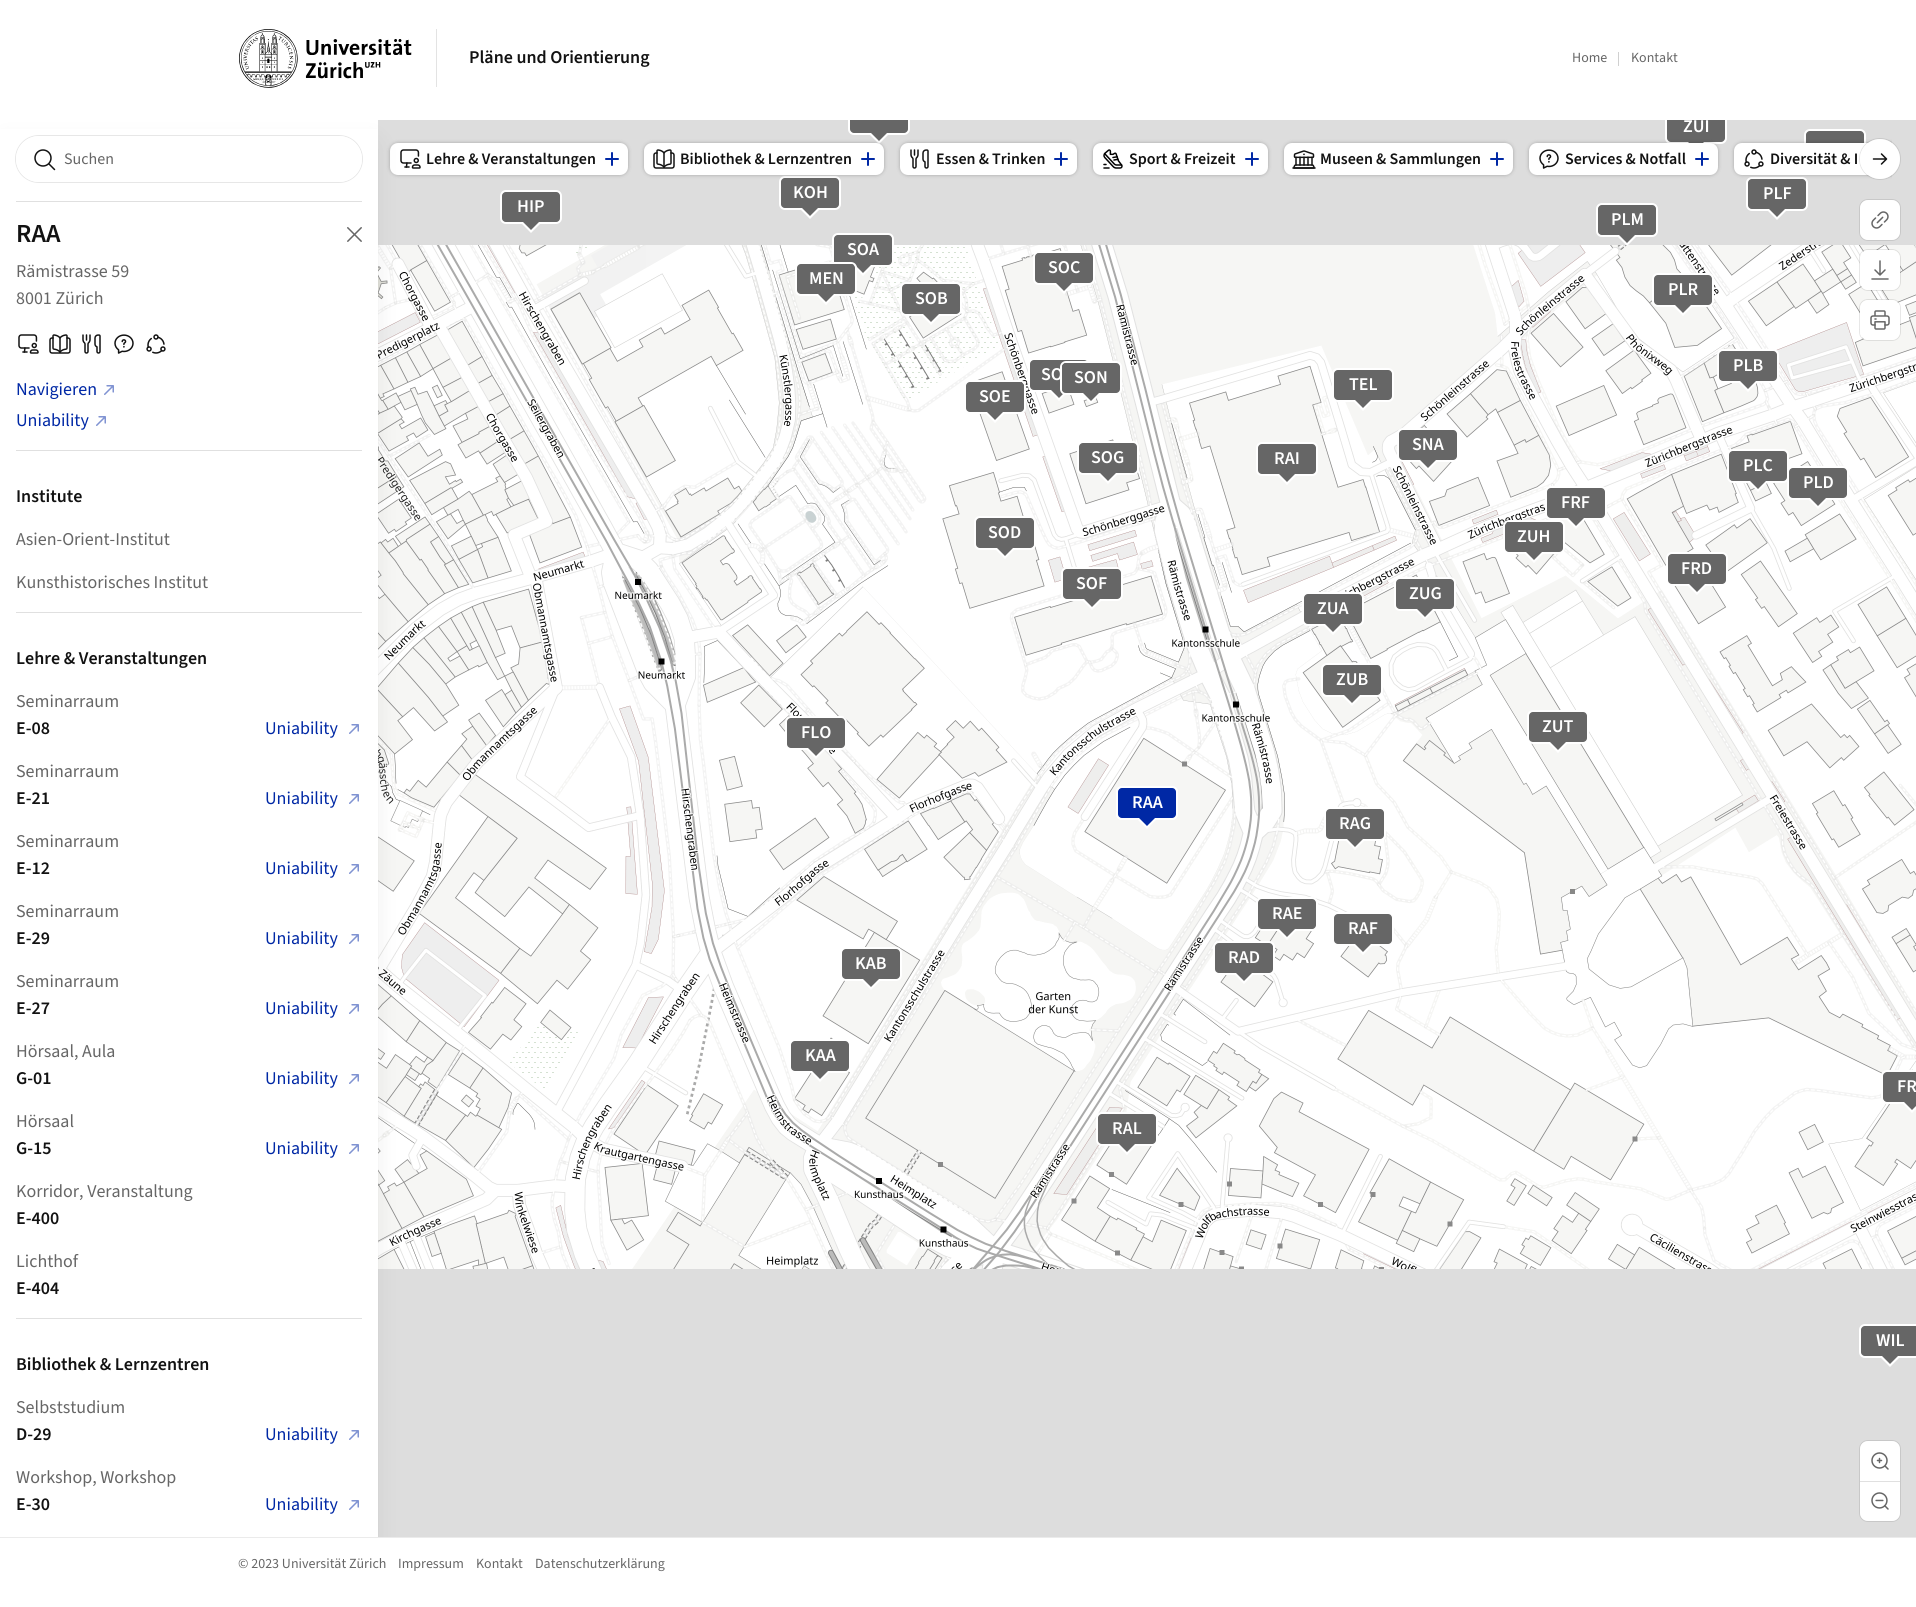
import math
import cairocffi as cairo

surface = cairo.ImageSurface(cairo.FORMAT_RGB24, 1916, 1607)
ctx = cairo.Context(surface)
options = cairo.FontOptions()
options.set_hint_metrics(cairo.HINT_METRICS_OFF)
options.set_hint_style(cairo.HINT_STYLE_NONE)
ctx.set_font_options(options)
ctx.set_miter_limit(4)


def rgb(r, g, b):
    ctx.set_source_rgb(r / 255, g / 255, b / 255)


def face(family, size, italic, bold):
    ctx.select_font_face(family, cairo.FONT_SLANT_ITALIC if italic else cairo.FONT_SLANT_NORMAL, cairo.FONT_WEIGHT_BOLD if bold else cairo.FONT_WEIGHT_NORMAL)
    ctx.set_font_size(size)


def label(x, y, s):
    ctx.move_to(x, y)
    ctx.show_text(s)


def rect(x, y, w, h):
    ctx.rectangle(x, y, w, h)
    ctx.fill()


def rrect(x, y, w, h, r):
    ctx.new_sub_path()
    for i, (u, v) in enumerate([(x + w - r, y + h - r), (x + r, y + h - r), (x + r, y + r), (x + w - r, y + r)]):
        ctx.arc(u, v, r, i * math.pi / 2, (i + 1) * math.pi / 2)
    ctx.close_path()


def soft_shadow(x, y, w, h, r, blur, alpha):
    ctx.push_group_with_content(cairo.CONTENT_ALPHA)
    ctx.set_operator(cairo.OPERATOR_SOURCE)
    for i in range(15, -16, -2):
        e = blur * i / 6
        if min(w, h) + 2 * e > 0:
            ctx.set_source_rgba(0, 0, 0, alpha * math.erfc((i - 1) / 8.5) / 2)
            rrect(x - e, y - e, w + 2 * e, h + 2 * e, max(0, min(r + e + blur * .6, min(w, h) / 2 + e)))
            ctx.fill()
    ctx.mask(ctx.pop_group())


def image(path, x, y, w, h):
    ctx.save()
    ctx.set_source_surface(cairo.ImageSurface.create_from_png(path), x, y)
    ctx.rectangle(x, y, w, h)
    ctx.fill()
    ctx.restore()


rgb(255, 255, 255)
ctx.paint()
image('image0.png', 239, 29, 173, 59)
rgb(227, 227, 227)
rect(436, 29, 1, 58)
face('Source Sans 3 SemiBold', 18, 0, 0)
rgb(18, 18, 18)
label(469, 63, 'Pläne und Orientierung')
face('Source Sans 3', 14, 0, 0)
rgb(102, 102, 102)
label(1572, 62, 'Home')
rgb(208, 208, 208)
rect(1618, 52, 1, 14)
rgb(102, 102, 102)
label(1631, 62, 'Kontakt')
rgb(221, 221, 221)
rect(378, 120, 1538, 1417)
ctx.save()
ctx.rectangle(0, 120, 1916, 1417)
ctx.clip()
rrect(849, 102, 60, 32, 5)
rgb(255, 255, 255)
ctx.stroke()
ctx.restore()
rgb(102, 102, 102)
ctx.new_path()
ctx.move_to(850, 120)
ctx.line_to(908, 120)
ctx.line_to(908, 129)
ctx.curve_to(908, 131, 906, 133, 904, 133)
ctx.line_to(854, 133)
ctx.curve_to(852, 133, 850, 131, 850, 129)
ctx.close_path()
ctx.fill()
rgb(255, 255, 255)
ctx.new_path()
ctx.move_to(870, 135)
ctx.line_to(888, 135)
ctx.line_to(879, 144)
ctx.close_path()
ctx.fill()
rgb(102, 102, 102)
ctx.new_path()
ctx.move_to(870, 132)
ctx.line_to(888, 132)
ctx.line_to(879, 141)
ctx.close_path()
ctx.fill()
ctx.save()
ctx.rectangle(0, 120, 1916, 1417)
ctx.clip()
rrect(1666, 111, 60, 32, 5)
rgb(255, 255, 255)
ctx.stroke()
ctx.restore()
ctx.new_path()
ctx.move_to(1667, 120)
ctx.line_to(1725, 120)
ctx.line_to(1725, 138)
ctx.curve_to(1725, 140, 1723, 142, 1721, 142)
ctx.line_to(1671, 142)
ctx.curve_to(1669, 142, 1667, 140, 1667, 138)
ctx.close_path()
ctx.fill()
face('Source Sans 3 SemiBold', 18, 0, 0)
rgb(255, 255, 255)
label(1683, 132, 'ZUI')
rgb(102, 102, 102)
ctx.new_path()
ctx.move_to(1687, 141)
ctx.line_to(1705, 141)
ctx.line_to(1696, 150)
ctx.close_path()
ctx.fill()
rrect(1805, 130, 60, 32, 5)
rgb(255, 255, 255)
ctx.stroke()
rgb(102, 102, 102)
rrect(1806, 131, 58, 30, 4)
ctx.fill()
rrect(780, 177, 60, 32, 5)
rgb(255, 255, 255)
ctx.stroke()
rgb(102, 102, 102)
rrect(781, 178, 58, 30, 4)
ctx.fill()
rgb(255, 255, 255)
label(793, 198, 'KOH')
ctx.new_path()
ctx.move_to(801, 210)
ctx.line_to(819, 210)
ctx.line_to(810, 219)
ctx.close_path()
ctx.fill()
rgb(102, 102, 102)
ctx.new_path()
ctx.move_to(801, 207)
ctx.line_to(819, 207)
ctx.line_to(810, 216)
ctx.close_path()
ctx.fill()
rrect(1747, 178, 60, 32, 5)
rgb(255, 255, 255)
ctx.stroke()
rgb(102, 102, 102)
rrect(1748, 179, 58, 30, 4)
ctx.fill()
rgb(255, 255, 255)
label(1763, 199, 'PLF')
ctx.new_path()
ctx.move_to(1768, 211)
ctx.line_to(1786, 211)
ctx.line_to(1777, 220)
ctx.close_path()
ctx.fill()
rgb(102, 102, 102)
ctx.new_path()
ctx.move_to(1768, 208)
ctx.line_to(1786, 208)
ctx.line_to(1777, 217)
ctx.close_path()
ctx.fill()
rrect(501, 191, 60, 32, 5)
rgb(255, 255, 255)
ctx.stroke()
rgb(102, 102, 102)
rrect(502, 192, 58, 30, 4)
ctx.fill()
rgb(255, 255, 255)
label(517, 212, 'HIP')
ctx.new_path()
ctx.move_to(522, 224)
ctx.line_to(540, 224)
ctx.line_to(531, 233)
ctx.close_path()
ctx.fill()
rgb(102, 102, 102)
ctx.new_path()
ctx.move_to(522, 221)
ctx.line_to(540, 221)
ctx.line_to(531, 230)
ctx.close_path()
ctx.fill()
rrect(1597, 204, 60, 32, 5)
rgb(255, 255, 255)
ctx.stroke()
rgb(102, 102, 102)
rrect(1598, 205, 58, 30, 4)
ctx.fill()
rgb(255, 255, 255)
label(1611, 225, 'PLM')
image('image6.png', 1414, 245, 256, 256)
ctx.new_path()
ctx.move_to(1618, 237)
ctx.line_to(1636, 237)
ctx.line_to(1627, 246)
ctx.close_path()
ctx.fill()
rgb(102, 102, 102)
ctx.new_path()
ctx.move_to(1618, 234)
ctx.line_to(1636, 234)
ctx.line_to(1627, 243)
ctx.close_path()
ctx.fill()
image('image3.png', 646, 245, 256, 256)
rrect(833, 234, 60, 32, 5)
rgb(255, 255, 255)
ctx.stroke()
rgb(102, 102, 102)
rrect(834, 235, 58, 30, 4)
ctx.fill()
rgb(255, 255, 255)
label(847, 255, 'SOA')
ctx.new_path()
ctx.move_to(854, 267)
ctx.line_to(872, 267)
ctx.line_to(863, 276)
ctx.close_path()
ctx.fill()
rgb(102, 102, 102)
ctx.new_path()
ctx.move_to(854, 264)
ctx.line_to(872, 264)
ctx.line_to(863, 273)
ctx.close_path()
ctx.fill()
image('image4.png', 902, 245, 256, 256)
rrect(1034, 252, 60, 32, 5)
rgb(255, 255, 255)
ctx.stroke()
rgb(102, 102, 102)
rrect(1035, 253, 58, 30, 4)
ctx.fill()
rgb(255, 255, 255)
label(1048, 273, 'SOC')
ctx.new_path()
ctx.move_to(1055, 285)
ctx.line_to(1073, 285)
ctx.line_to(1064, 294)
ctx.close_path()
ctx.fill()
rgb(102, 102, 102)
ctx.new_path()
ctx.move_to(1055, 282)
ctx.line_to(1073, 282)
ctx.line_to(1064, 291)
ctx.close_path()
ctx.fill()
rrect(796, 263, 60, 32, 5)
rgb(255, 255, 255)
ctx.stroke()
rgb(102, 102, 102)
rrect(797, 264, 58, 30, 4)
ctx.fill()
rgb(255, 255, 255)
label(809, 284, 'MEN')
ctx.new_path()
ctx.move_to(817, 296)
ctx.line_to(835, 296)
ctx.line_to(826, 305)
ctx.close_path()
ctx.fill()
rgb(102, 102, 102)
ctx.new_path()
ctx.move_to(817, 293)
ctx.line_to(835, 293)
ctx.line_to(826, 302)
ctx.close_path()
ctx.fill()
image('image7.png', 1670, 245, 246, 256)
rrect(1653, 274, 60, 32, 5)
rgb(255, 255, 255)
ctx.stroke()
rgb(102, 102, 102)
rrect(1654, 275, 58, 30, 4)
ctx.fill()
rgb(255, 255, 255)
label(1668, 295, 'PLR')
ctx.new_path()
ctx.move_to(1674, 307)
ctx.line_to(1692, 307)
ctx.line_to(1683, 316)
ctx.close_path()
ctx.fill()
rgb(102, 102, 102)
ctx.new_path()
ctx.move_to(1674, 304)
ctx.line_to(1692, 304)
ctx.line_to(1683, 313)
ctx.close_path()
ctx.fill()
rrect(901, 283, 60, 32, 5)
rgb(255, 255, 255)
ctx.stroke()
rgb(102, 102, 102)
rrect(902, 284, 58, 30, 4)
ctx.fill()
rgb(255, 255, 255)
label(915, 304, 'SOB')
ctx.new_path()
ctx.move_to(922, 316)
ctx.line_to(940, 316)
ctx.line_to(931, 325)
ctx.close_path()
ctx.fill()
rgb(102, 102, 102)
ctx.new_path()
ctx.move_to(922, 313)
ctx.line_to(940, 313)
ctx.line_to(931, 322)
ctx.close_path()
ctx.fill()
rrect(1718, 350, 60, 32, 5)
rgb(255, 255, 255)
ctx.stroke()
rgb(102, 102, 102)
rrect(1719, 351, 58, 30, 4)
ctx.fill()
rgb(255, 255, 255)
label(1733, 371, 'PLB')
ctx.new_path()
ctx.move_to(1739, 383)
ctx.line_to(1757, 383)
ctx.line_to(1748, 392)
ctx.close_path()
ctx.fill()
rgb(102, 102, 102)
ctx.new_path()
ctx.move_to(1739, 380)
ctx.line_to(1757, 380)
ctx.line_to(1748, 389)
ctx.close_path()
ctx.fill()
rrect(1029, 359, 60, 32, 5)
rgb(255, 255, 255)
ctx.stroke()
rgb(102, 102, 102)
rrect(1030, 360, 58, 30, 4)
ctx.fill()
rgb(255, 255, 255)
label(1041, 380, 'SO')
ctx.new_path()
ctx.move_to(1050, 392)
ctx.line_to(1068, 392)
ctx.line_to(1059, 401)
ctx.close_path()
ctx.fill()
rgb(102, 102, 102)
ctx.new_path()
ctx.move_to(1050, 389)
ctx.line_to(1068, 389)
ctx.line_to(1059, 398)
ctx.close_path()
ctx.fill()
rrect(1061, 362, 60, 32, 5)
rgb(255, 255, 255)
ctx.stroke()
rgb(102, 102, 102)
rrect(1062, 363, 58, 30, 4)
ctx.fill()
rgb(255, 255, 255)
label(1074, 383, 'SON')
ctx.new_path()
ctx.move_to(1082, 395)
ctx.line_to(1100, 395)
ctx.line_to(1091, 404)
ctx.close_path()
ctx.fill()
rgb(102, 102, 102)
ctx.new_path()
ctx.move_to(1082, 392)
ctx.line_to(1100, 392)
ctx.line_to(1091, 401)
ctx.close_path()
ctx.fill()
image('image5.png', 1158, 245, 256, 256)
rrect(1333, 369, 60, 32, 5)
rgb(255, 255, 255)
ctx.stroke()
rgb(102, 102, 102)
rrect(1334, 370, 58, 30, 4)
ctx.fill()
rgb(255, 255, 255)
label(1349, 390, 'TEL')
ctx.new_path()
ctx.move_to(1354, 402)
ctx.line_to(1372, 402)
ctx.line_to(1363, 411)
ctx.close_path()
ctx.fill()
rgb(102, 102, 102)
ctx.new_path()
ctx.move_to(1354, 399)
ctx.line_to(1372, 399)
ctx.line_to(1363, 408)
ctx.close_path()
ctx.fill()
rrect(965, 381, 60, 32, 5)
rgb(255, 255, 255)
ctx.stroke()
rgb(102, 102, 102)
rrect(966, 382, 58, 30, 4)
ctx.fill()
rgb(255, 255, 255)
label(979, 402, 'SOE')
ctx.new_path()
ctx.move_to(986, 414)
ctx.line_to(1004, 414)
ctx.line_to(995, 423)
ctx.close_path()
ctx.fill()
rgb(102, 102, 102)
ctx.new_path()
ctx.move_to(986, 411)
ctx.line_to(1004, 411)
ctx.line_to(995, 420)
ctx.close_path()
ctx.fill()
rrect(1398, 429, 60, 32, 5)
rgb(255, 255, 255)
ctx.stroke()
rgb(102, 102, 102)
rrect(1399, 430, 58, 30, 4)
ctx.fill()
rgb(255, 255, 255)
label(1412, 450, 'SNA')
ctx.new_path()
ctx.move_to(1419, 462)
ctx.line_to(1437, 462)
ctx.line_to(1428, 471)
ctx.close_path()
ctx.fill()
rgb(102, 102, 102)
ctx.new_path()
ctx.move_to(1419, 459)
ctx.line_to(1437, 459)
ctx.line_to(1428, 468)
ctx.close_path()
ctx.fill()
rrect(1078, 442, 60, 32, 5)
rgb(255, 255, 255)
ctx.stroke()
rgb(102, 102, 102)
rrect(1079, 443, 58, 30, 4)
ctx.fill()
rgb(255, 255, 255)
label(1091, 463, 'SOG')
ctx.new_path()
ctx.move_to(1099, 475)
ctx.line_to(1117, 475)
ctx.line_to(1108, 484)
ctx.close_path()
ctx.fill()
rgb(102, 102, 102)
ctx.new_path()
ctx.move_to(1099, 472)
ctx.line_to(1117, 472)
ctx.line_to(1108, 481)
ctx.close_path()
ctx.fill()
rrect(1257, 443, 60, 32, 5)
rgb(255, 255, 255)
ctx.stroke()
rgb(102, 102, 102)
rrect(1258, 444, 58, 30, 4)
ctx.fill()
rgb(255, 255, 255)
label(1274, 464, 'RAI')
ctx.new_path()
ctx.move_to(1278, 476)
ctx.line_to(1296, 476)
ctx.line_to(1287, 485)
ctx.close_path()
ctx.fill()
rgb(102, 102, 102)
ctx.new_path()
ctx.move_to(1278, 473)
ctx.line_to(1296, 473)
ctx.line_to(1287, 482)
ctx.close_path()
ctx.fill()
rrect(1728, 450, 60, 32, 5)
rgb(255, 255, 255)
ctx.stroke()
rgb(102, 102, 102)
rrect(1729, 451, 58, 30, 4)
ctx.fill()
rgb(255, 255, 255)
label(1743, 471, 'PLC')
ctx.new_path()
ctx.move_to(1749, 483)
ctx.line_to(1767, 483)
ctx.line_to(1758, 492)
ctx.close_path()
ctx.fill()
rgb(102, 102, 102)
ctx.new_path()
ctx.move_to(1749, 480)
ctx.line_to(1767, 480)
ctx.line_to(1758, 489)
ctx.close_path()
ctx.fill()
rrect(1788, 467, 60, 32, 5)
rgb(255, 255, 255)
ctx.stroke()
rgb(102, 102, 102)
rrect(1789, 468, 58, 30, 4)
ctx.fill()
rgb(255, 255, 255)
label(1803, 488, 'PLD')
image('image14.png', 1670, 501, 246, 256)
ctx.new_path()
ctx.move_to(1809, 500)
ctx.line_to(1827, 500)
ctx.line_to(1818, 509)
ctx.close_path()
ctx.fill()
rgb(102, 102, 102)
ctx.new_path()
ctx.move_to(1809, 497)
ctx.line_to(1827, 497)
ctx.line_to(1818, 506)
ctx.close_path()
ctx.fill()
image('image13.png', 1414, 501, 256, 256)
rrect(1546, 487, 60, 32, 5)
rgb(255, 255, 255)
ctx.stroke()
rgb(102, 102, 102)
rrect(1547, 488, 58, 30, 4)
ctx.fill()
rgb(255, 255, 255)
label(1561, 508, 'FRF')
ctx.new_path()
ctx.move_to(1567, 520)
ctx.line_to(1585, 520)
ctx.line_to(1576, 529)
ctx.close_path()
ctx.fill()
rgb(102, 102, 102)
ctx.new_path()
ctx.move_to(1567, 517)
ctx.line_to(1585, 517)
ctx.line_to(1576, 526)
ctx.close_path()
ctx.fill()
image('image11.png', 902, 501, 256, 256)
rrect(975, 517, 60, 32, 5)
rgb(255, 255, 255)
ctx.stroke()
rgb(102, 102, 102)
rrect(976, 518, 58, 30, 4)
ctx.fill()
rgb(255, 255, 255)
label(988, 538, 'SOD')
ctx.new_path()
ctx.move_to(996, 550)
ctx.line_to(1014, 550)
ctx.line_to(1005, 559)
ctx.close_path()
ctx.fill()
rgb(102, 102, 102)
ctx.new_path()
ctx.move_to(996, 547)
ctx.line_to(1014, 547)
ctx.line_to(1005, 556)
ctx.close_path()
ctx.fill()
rrect(1504, 521, 60, 32, 5)
rgb(255, 255, 255)
ctx.stroke()
rgb(102, 102, 102)
rrect(1505, 522, 58, 30, 4)
ctx.fill()
rgb(255, 255, 255)
label(1517, 542, 'ZUH')
ctx.new_path()
ctx.move_to(1525, 554)
ctx.line_to(1543, 554)
ctx.line_to(1534, 563)
ctx.close_path()
ctx.fill()
rgb(102, 102, 102)
ctx.new_path()
ctx.move_to(1525, 551)
ctx.line_to(1543, 551)
ctx.line_to(1534, 560)
ctx.close_path()
ctx.fill()
rrect(1667, 553, 60, 32, 5)
rgb(255, 255, 255)
ctx.stroke()
rgb(102, 102, 102)
rrect(1668, 554, 58, 30, 4)
ctx.fill()
rgb(255, 255, 255)
label(1681, 574, 'FRD')
ctx.new_path()
ctx.move_to(1688, 586)
ctx.line_to(1706, 586)
ctx.line_to(1697, 595)
ctx.close_path()
ctx.fill()
rgb(102, 102, 102)
ctx.new_path()
ctx.move_to(1688, 583)
ctx.line_to(1706, 583)
ctx.line_to(1697, 592)
ctx.close_path()
ctx.fill()
rrect(1062, 568, 60, 32, 5)
rgb(255, 255, 255)
ctx.stroke()
rgb(102, 102, 102)
rrect(1063, 569, 58, 30, 4)
ctx.fill()
rgb(255, 255, 255)
label(1076, 589, 'SOF')
ctx.new_path()
ctx.move_to(1083, 601)
ctx.line_to(1101, 601)
ctx.line_to(1092, 610)
ctx.close_path()
ctx.fill()
rgb(102, 102, 102)
ctx.new_path()
ctx.move_to(1083, 598)
ctx.line_to(1101, 598)
ctx.line_to(1092, 607)
ctx.close_path()
ctx.fill()
image('image12.png', 1158, 501, 256, 256)
rrect(1395, 578, 60, 32, 5)
rgb(255, 255, 255)
ctx.stroke()
rgb(102, 102, 102)
rrect(1396, 579, 58, 30, 4)
ctx.fill()
rgb(255, 255, 255)
label(1409, 599, 'ZUG')
ctx.new_path()
ctx.move_to(1416, 611)
ctx.line_to(1434, 611)
ctx.line_to(1425, 620)
ctx.close_path()
ctx.fill()
rgb(102, 102, 102)
ctx.new_path()
ctx.move_to(1416, 608)
ctx.line_to(1434, 608)
ctx.line_to(1425, 617)
ctx.close_path()
ctx.fill()
rrect(1303, 593, 60, 32, 5)
rgb(255, 255, 255)
ctx.stroke()
rgb(102, 102, 102)
rrect(1304, 594, 58, 30, 4)
ctx.fill()
rgb(255, 255, 255)
label(1317, 614, 'ZUA')
ctx.new_path()
ctx.move_to(1324, 626)
ctx.line_to(1342, 626)
ctx.line_to(1333, 635)
ctx.close_path()
ctx.fill()
rgb(102, 102, 102)
ctx.new_path()
ctx.move_to(1324, 623)
ctx.line_to(1342, 623)
ctx.line_to(1333, 632)
ctx.close_path()
ctx.fill()
rrect(1322, 664, 60, 32, 5)
rgb(255, 255, 255)
ctx.stroke()
rgb(102, 102, 102)
rrect(1323, 665, 58, 30, 4)
ctx.fill()
rgb(255, 255, 255)
label(1336, 685, 'ZUB')
ctx.new_path()
ctx.move_to(1343, 697)
ctx.line_to(1361, 697)
ctx.line_to(1352, 706)
ctx.close_path()
ctx.fill()
rgb(102, 102, 102)
ctx.new_path()
ctx.move_to(1343, 694)
ctx.line_to(1361, 694)
ctx.line_to(1352, 703)
ctx.close_path()
ctx.fill()
image('image10.png', 646, 501, 256, 256)
rrect(786, 717, 60, 32, 5)
rgb(255, 255, 255)
ctx.stroke()
rgb(102, 102, 102)
rrect(787, 718, 58, 30, 4)
ctx.fill()
rgb(255, 255, 255)
label(801, 738, 'FLO')
image('image17.png', 646, 757, 256, 256)
ctx.new_path()
ctx.move_to(807, 750)
ctx.line_to(825, 750)
ctx.line_to(816, 759)
ctx.close_path()
ctx.fill()
rgb(102, 102, 102)
ctx.new_path()
ctx.move_to(807, 747)
ctx.line_to(825, 747)
ctx.line_to(816, 756)
ctx.close_path()
ctx.fill()
rrect(1528, 711, 60, 32, 5)
rgb(255, 255, 255)
ctx.stroke()
rgb(102, 102, 102)
rrect(1529, 712, 58, 30, 4)
ctx.fill()
rgb(255, 255, 255)
label(1542, 732, 'ZUT')
ctx.new_path()
ctx.move_to(1549, 744)
ctx.line_to(1567, 744)
ctx.line_to(1558, 753)
ctx.close_path()
ctx.fill()
rgb(102, 102, 102)
ctx.new_path()
ctx.move_to(1549, 741)
ctx.line_to(1567, 741)
ctx.line_to(1558, 750)
ctx.close_path()
ctx.fill()
image('image18.png', 902, 757, 256, 256)
image('image19.png', 1158, 757, 256, 256)
rrect(1117, 787, 60, 32, 5)
rgb(255, 255, 255)
ctx.stroke()
rrect(1117, 787, 60, 32, 5)
ctx.stroke()
rgb(0, 40, 165)
rrect(1118, 788, 58, 30, 4)
ctx.fill()
rgb(255, 255, 255)
label(1132, 808, 'RAA')
ctx.new_path()
ctx.move_to(1138, 820)
ctx.line_to(1156, 820)
ctx.line_to(1147, 829)
ctx.close_path()
ctx.fill()
rgb(0, 40, 165)
ctx.new_path()
ctx.move_to(1138, 817)
ctx.line_to(1156, 817)
ctx.line_to(1147, 826)
ctx.close_path()
ctx.fill()
rrect(1325, 808, 60, 32, 5)
rgb(255, 255, 255)
ctx.stroke()
rgb(102, 102, 102)
rrect(1326, 809, 58, 30, 4)
ctx.fill()
rgb(255, 255, 255)
label(1339, 829, 'RAG')
ctx.new_path()
ctx.move_to(1346, 841)
ctx.line_to(1364, 841)
ctx.line_to(1355, 850)
ctx.close_path()
ctx.fill()
rgb(102, 102, 102)
ctx.new_path()
ctx.move_to(1346, 838)
ctx.line_to(1364, 838)
ctx.line_to(1355, 847)
ctx.close_path()
ctx.fill()
rrect(1257, 898, 60, 32, 5)
rgb(255, 255, 255)
ctx.stroke()
rgb(102, 102, 102)
rrect(1258, 899, 58, 30, 4)
ctx.fill()
rgb(255, 255, 255)
label(1272, 919, 'RAE')
ctx.new_path()
ctx.move_to(1278, 931)
ctx.line_to(1296, 931)
ctx.line_to(1287, 940)
ctx.close_path()
ctx.fill()
rgb(102, 102, 102)
ctx.new_path()
ctx.move_to(1278, 928)
ctx.line_to(1296, 928)
ctx.line_to(1287, 937)
ctx.close_path()
ctx.fill()
rrect(1333, 913, 60, 32, 5)
rgb(255, 255, 255)
ctx.stroke()
rgb(102, 102, 102)
rrect(1334, 914, 58, 30, 4)
ctx.fill()
rgb(255, 255, 255)
label(1348, 934, 'RAF')
ctx.new_path()
ctx.move_to(1354, 946)
ctx.line_to(1372, 946)
ctx.line_to(1363, 955)
ctx.close_path()
ctx.fill()
rgb(102, 102, 102)
ctx.new_path()
ctx.move_to(1354, 943)
ctx.line_to(1372, 943)
ctx.line_to(1363, 952)
ctx.close_path()
ctx.fill()
rrect(841, 948, 60, 32, 5)
rgb(255, 255, 255)
ctx.stroke()
rgb(102, 102, 102)
rrect(842, 949, 58, 30, 4)
ctx.fill()
rgb(255, 255, 255)
label(855, 969, 'KAB')
ctx.new_path()
ctx.move_to(862, 981)
ctx.line_to(880, 981)
ctx.line_to(871, 990)
ctx.close_path()
ctx.fill()
rgb(102, 102, 102)
ctx.new_path()
ctx.move_to(862, 978)
ctx.line_to(880, 978)
ctx.line_to(871, 987)
ctx.close_path()
ctx.fill()
rrect(1214, 942, 60, 32, 5)
rgb(255, 255, 255)
ctx.stroke()
rgb(102, 102, 102)
rrect(1215, 943, 58, 30, 4)
ctx.fill()
rgb(255, 255, 255)
label(1228, 963, 'RAD')
ctx.new_path()
ctx.move_to(1235, 975)
ctx.line_to(1253, 975)
ctx.line_to(1244, 984)
ctx.close_path()
ctx.fill()
rgb(102, 102, 102)
ctx.new_path()
ctx.move_to(1235, 972)
ctx.line_to(1253, 972)
ctx.line_to(1244, 981)
ctx.close_path()
ctx.fill()
image('image24.png', 646, 1013, 256, 256)
rrect(790, 1040, 60, 32, 5)
rgb(255, 255, 255)
ctx.stroke()
rgb(102, 102, 102)
rrect(791, 1041, 58, 30, 4)
ctx.fill()
rgb(255, 255, 255)
label(805, 1061, 'KAA')
ctx.new_path()
ctx.move_to(811, 1073)
ctx.line_to(829, 1073)
ctx.line_to(820, 1082)
ctx.close_path()
ctx.fill()
rgb(102, 102, 102)
ctx.new_path()
ctx.move_to(811, 1070)
ctx.line_to(829, 1070)
ctx.line_to(820, 1079)
ctx.close_path()
ctx.fill()
image('image28.png', 1670, 1013, 246, 256)
rrect(1882, 1071, 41, 32, 5)
rgb(255, 255, 255)
ctx.stroke()
rgb(102, 102, 102)
ctx.new_path()
ctx.move_to(1887, 1072)
ctx.line_to(1916, 1072)
ctx.line_to(1916, 1102)
ctx.line_to(1887, 1102)
ctx.curve_to(1885, 1102, 1883, 1100, 1883, 1098)
ctx.line_to(1883, 1076)
ctx.curve_to(1883, 1074, 1885, 1072, 1887, 1072)
ctx.close_path()
ctx.fill()
rgb(255, 255, 255)
label(1897, 1092, 'FR')
ctx.new_path()
ctx.move_to(1903, 1104)
ctx.line_to(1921, 1104)
ctx.line_to(1912, 1113)
ctx.close_path()
ctx.fill()
rgb(102, 102, 102)
ctx.new_path()
ctx.move_to(1903, 1101)
ctx.line_to(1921, 1101)
ctx.line_to(1912, 1110)
ctx.close_path()
ctx.fill()
image('image25.png', 902, 1013, 256, 256)
rrect(1097, 1113, 60, 32, 5)
rgb(255, 255, 255)
ctx.stroke()
rgb(102, 102, 102)
rrect(1098, 1114, 58, 30, 4)
ctx.fill()
rgb(255, 255, 255)
label(1112, 1134, 'RAL')
ctx.new_path()
ctx.move_to(1118, 1146)
ctx.line_to(1136, 1146)
ctx.line_to(1127, 1155)
ctx.close_path()
ctx.fill()
rgb(102, 102, 102)
ctx.new_path()
ctx.move_to(1118, 1143)
ctx.line_to(1136, 1143)
ctx.line_to(1127, 1152)
ctx.close_path()
ctx.fill()
rrect(1860, 1325, 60, 32, 5)
rgb(255, 255, 255)
ctx.stroke()
rgb(102, 102, 102)
rrect(1861, 1326, 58, 30, 4)
ctx.fill()
rgb(255, 255, 255)
label(1876, 1346, 'WIL')
ctx.new_path()
ctx.move_to(1881, 1358)
ctx.line_to(1899, 1358)
ctx.line_to(1890, 1367)
ctx.close_path()
ctx.fill()
rgb(102, 102, 102)
ctx.new_path()
ctx.move_to(1881, 1355)
ctx.line_to(1899, 1355)
ctx.line_to(1890, 1364)
ctx.close_path()
ctx.fill()
image('image1.png', 378, 245, 12, 256)
image('image2.png', 390, 245, 256, 256)
image('image8.png', 378, 501, 12, 256)
image('image9.png', 390, 501, 256, 256)
image('image15.png', 378, 757, 12, 256)
image('image16.png', 390, 757, 256, 256)
image('image20.png', 1414, 757, 256, 256)
image('image21.png', 1670, 757, 246, 256)
image('image22.png', 378, 1013, 12, 256)
image('image23.png', 390, 1013, 256, 256)
image('image26.png', 1158, 1013, 256, 256)
image('image27.png', 1414, 1013, 256, 256)
rrect(1859.5, 1440.5, 41, 81, 8.5)
ctx.set_source_rgba(0.071, 0.071, 0.071, 0.1)
ctx.set_line_width(1)
ctx.stroke()
rgb(255, 255, 255)
ctx.new_path()
ctx.move_to(1868, 1441)
ctx.line_to(1892, 1441)
ctx.curve_to(1896.5, 1441, 1900, 1444.5, 1900, 1449)
ctx.line_to(1900, 1481)
ctx.line_to(1860, 1481)
ctx.line_to(1860, 1449)
ctx.curve_to(1860, 1444.5, 1863.5, 1441, 1868, 1441)
ctx.close_path()
ctx.fill()
image('image29.png', 1871, 1452, 18, 18)
ctx.new_path()
ctx.move_to(1860, 1481)
ctx.line_to(1900, 1481)
ctx.line_to(1900, 1513)
ctx.curve_to(1900, 1517.5, 1896.5, 1521, 1892, 1521)
ctx.line_to(1868, 1521)
ctx.curve_to(1863.5, 1521, 1860, 1517.5, 1860, 1513)
ctx.close_path()
ctx.fill()
image('image30.png', 1871, 1492, 18, 18)
rgb(224, 224, 224)
rect(1860, 1481, 40, 1)
rrect(1859.5, 199.5, 41, 41, 8.5)
ctx.set_source_rgba(0.071, 0.071, 0.071, 0.1)
ctx.stroke()
rgb(255, 255, 255)
rrect(1860, 200, 40, 40, 8)
ctx.fill()
image('image31.png', 1871, 211, 18, 18)
rrect(1859.5, 249.5, 41, 41, 8.5)
ctx.set_source_rgba(0.071, 0.071, 0.071, 0.1)
ctx.stroke()
rgb(255, 255, 255)
rrect(1860, 250, 40, 40, 8)
ctx.fill()
ctx.new_path()
ctx.move_to(1880, 275)
ctx.line_to(1880, 261)
ctx.move_to(1888, 279)
ctx.line_to(1872, 279)
ctx.move_to(1885, 270)
ctx.line_to(1880, 275)
ctx.line_to(1875, 270)
rgb(102, 102, 102)
ctx.set_line_width(1.5)
ctx.set_line_cap(cairo.LINE_CAP_ROUND)
ctx.set_line_join(cairo.LINE_JOIN_ROUND)
ctx.stroke()
rrect(1859.5, 299.5, 41, 41, 8.5)
ctx.set_source_rgba(0.071, 0.071, 0.071, 0.1)
ctx.set_line_width(1)
ctx.set_line_cap(cairo.LINE_CAP_BUTT)
ctx.set_line_join(cairo.LINE_JOIN_MITER)
ctx.stroke()
rgb(255, 255, 255)
rrect(1860, 300, 40, 40, 8)
ctx.fill()
image('image32.png', 1870, 310, 20, 20)
rgb(0, 0, 0)
soft_shadow(390, 143, 238, 32, 8, 2, 0.25)
rgb(255, 255, 255)
rrect(390, 143, 238, 32, 8)
ctx.fill()
image('image33.png', 400, 149, 21, 20)
rgb(235, 235, 235)
rect(0, 1537, 1916, 1)
ctx.save()
ctx.rectangle(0, 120, 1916, 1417)
ctx.clip()
rgb(0, 0, 0)
soft_shadow(5, 145, 368, 1407, 0, 12.5, 0.1)
ctx.restore()
rgb(255, 255, 255)
rect(0, 129, 378, 1408)
rrect(15.5, 135.5, 347, 47, 23.5)
rgb(231, 231, 231)
ctx.stroke()
rgb(255, 255, 255)
rrect(16, 136, 346, 46, 23)
ctx.fill()
ctx.arc(43, 158, 8, 0, 2 * math.pi)
rgb(18, 18, 18)
ctx.set_line_width(1.5)
ctx.stroke()
ctx.new_path()
ctx.move_to(49, 164)
ctx.line_to(54.5, 169.5)
ctx.set_line_cap(cairo.LINE_CAP_ROUND)
ctx.stroke()
face('Source Sans 3', 16, 0, 0)
rgb(102, 102, 102)
label(64, 164, 'Suchen')
face('Source Sans 3 SemiBold', 16, 0, 0)
rgb(18, 18, 18)
label(426, 164, 'Lehre & Veranstaltungen')
image('image34.png', 605, 152, 14, 14)
rgb(0, 0, 0)
soft_shadow(644, 143, 240, 32, 8, 2, 0.25)
rgb(255, 255, 255)
rrect(644, 143, 240, 32, 8)
ctx.fill()
image('image35.png', 653, 149, 22, 20)
rgb(18, 18, 18)
label(680, 164, 'Bibliothek & Lernzentren')
image('image34.png', 861, 152, 14, 14)
rgb(0, 0, 0)
soft_shadow(900, 143, 177, 32, 8, 2, 0.25)
rgb(255, 255, 255)
rrect(900, 143, 177, 32, 8)
ctx.fill()
image('image36.png', 910, 149, 19, 20)
rgb(18, 18, 18)
label(936, 164, 'Essen & Trinken')
image('image34.png', 1054, 152, 14, 14)
rgb(0, 0, 0)
soft_shadow(1093, 143, 175, 32, 8, 2, 0.25)
rgb(255, 255, 255)
rrect(1093, 143, 175, 32, 8)
ctx.fill()
image('image37.png', 1103, 149, 20, 20)
rgb(18, 18, 18)
label(1129, 164, 'Sport & Freizeit')
image('image34.png', 1245, 152, 14, 14)
rgb(0, 0, 0)
soft_shadow(1284, 143, 229, 32, 8, 2, 0.25)
rgb(255, 255, 255)
rrect(1284, 143, 229, 32, 8)
ctx.fill()
image('image38.png', 1292, 150, 24, 19)
rgb(18, 18, 18)
label(1320, 164, 'Museen & Sammlungen')
image('image34.png', 1490, 152, 14, 14)
rgb(0, 0, 0)
soft_shadow(1529, 143, 189, 32, 8, 2, 0.25)
rgb(255, 255, 255)
rrect(1529, 143, 189, 32, 8)
ctx.fill()
image('image39.png', 1539, 149, 20, 20)
rgb(18, 18, 18)
label(1565, 164, 'Services & Notfall')
image('image34.png', 1695, 152, 14, 14)
ctx.save()
ctx.rectangle(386, 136, 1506, 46)
ctx.clip()
rgb(0, 0, 0)
soft_shadow(1734, 143, 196, 32, 8, 2, 0.25)
ctx.restore()
rgb(255, 255, 255)
ctx.new_path()
ctx.move_to(1742, 143)
ctx.line_to(1892, 143)
ctx.line_to(1892, 175)
ctx.line_to(1742, 175)
ctx.curve_to(1737.5, 175, 1734, 171.5, 1734, 167)
ctx.line_to(1734, 151)
ctx.curve_to(1734, 146.5, 1737.5, 143, 1742, 143)
ctx.close_path()
ctx.fill()
image('image40.png', 1744, 149, 20, 20)
rgb(18, 18, 18)
label(1770, 164, 'Diversität & I')
ctx.new_path()
ctx.arc(1880, 159, 20.5, 0, 2 * math.pi)
ctx.set_source_rgba(0.071, 0.071, 0.071, 0.1)
ctx.set_line_width(1)
ctx.set_line_cap(cairo.LINE_CAP_BUTT)
ctx.stroke()
rgb(255, 255, 255)
ctx.arc(1880, 159, 20, 0, 2 * math.pi)
ctx.fill()
ctx.new_path()
ctx.move_to(1873.5, 159)
ctx.line_to(1886.5, 159)
ctx.move_to(1881.5, 154)
ctx.line_to(1886.5, 159)
ctx.line_to(1881.5, 164)
rgb(18, 18, 18)
ctx.set_line_width(1.5)
ctx.set_line_cap(cairo.LINE_CAP_ROUND)
ctx.set_line_join(cairo.LINE_JOIN_ROUND)
ctx.stroke()
rgb(224, 224, 224)
rect(16, 201, 346, 1)
face('Source Sans 3 SemiBold', 26, 0, 0)
rgb(18, 18, 18)
label(16, 242, 'RAA')
image('image41.png', 347, 227, 15, 15)
face('Source Sans 3', 18, 0, 0)
rgb(102, 102, 102)
label(16, 277, 'Rämistrasse 59')
label(16, 304, '8001 Zürich')
image('image33.png', 18, 334, 21, 20)
image('image35.png', 49, 334, 22, 20)
image('image36.png', 82, 334, 19, 20)
image('image39.png', 114, 334, 20, 20)
image('image40.png', 146, 334, 20, 20)
rgb(0, 40, 165)
label(16, 395, 'Navigieren')
image('image42.png', 104, 385, 10, 10)
label(16, 426, 'Uniability')
image('image42.png', 96, 416, 10, 10)
rgb(224, 224, 224)
rect(16, 450, 346, 1)
rect(16, 612, 346, 1)
face('Source Sans 3 SemiBold', 18, 0, 0)
rgb(18, 18, 18)
label(16, 502, 'Institute')
face('Source Sans 3', 18, 0, 0)
rgb(102, 102, 102)
label(16, 545, 'Asien-Orient-Institut')
label(16, 588, 'Kunsthistorisches Institut')
rgb(224, 224, 224)
rect(16, 1318, 346, 1)
face('Source Sans 3 SemiBold', 18, 0, 0)
rgb(18, 18, 18)
label(16, 664, 'Lehre & Veranstaltungen')
face('Source Sans 3', 18, 0, 0)
rgb(102, 102, 102)
label(16, 707, 'Seminarraum')
face('Source Sans 3 SemiBold', 18, 0, 0)
rgb(18, 18, 18)
label(16, 734, 'E-08')
face('Source Sans 3', 18, 0, 0)
rgb(0, 40, 165)
label(265, 734, 'Uniability')
image('image42.png', 349, 724, 10, 10)
rgb(102, 102, 102)
label(16, 777, 'Seminarraum')
face('Source Sans 3 SemiBold', 18, 0, 0)
rgb(18, 18, 18)
label(16, 804, 'E-21')
face('Source Sans 3', 18, 0, 0)
rgb(0, 40, 165)
label(265, 804, 'Uniability')
image('image42.png', 349, 794, 10, 10)
rgb(102, 102, 102)
label(16, 847, 'Seminarraum')
face('Source Sans 3 SemiBold', 18, 0, 0)
rgb(18, 18, 18)
label(16, 874, 'E-12')
face('Source Sans 3', 18, 0, 0)
rgb(0, 40, 165)
label(265, 874, 'Uniability')
image('image42.png', 349, 864, 10, 10)
rgb(102, 102, 102)
label(16, 917, 'Seminarraum')
face('Source Sans 3 SemiBold', 18, 0, 0)
rgb(18, 18, 18)
label(16, 944, 'E-29')
face('Source Sans 3', 18, 0, 0)
rgb(0, 40, 165)
label(265, 944, 'Uniability')
image('image42.png', 349, 934, 10, 10)
rgb(102, 102, 102)
label(16, 987, 'Seminarraum')
face('Source Sans 3 SemiBold', 18, 0, 0)
rgb(18, 18, 18)
label(16, 1014, 'E-27')
face('Source Sans 3', 18, 0, 0)
rgb(0, 40, 165)
label(265, 1014, 'Uniability')
image('image42.png', 349, 1004, 10, 10)
rgb(102, 102, 102)
label(16, 1057, 'Hörsaal, Aula')
face('Source Sans 3 SemiBold', 18, 0, 0)
rgb(18, 18, 18)
label(16, 1084, 'G-01')
face('Source Sans 3', 18, 0, 0)
rgb(0, 40, 165)
label(265, 1084, 'Uniability')
image('image42.png', 349, 1074, 10, 10)
rgb(102, 102, 102)
label(16, 1127, 'Hörsaal')
face('Source Sans 3 SemiBold', 18, 0, 0)
rgb(18, 18, 18)
label(16, 1154, 'G-15')
face('Source Sans 3', 18, 0, 0)
rgb(0, 40, 165)
label(265, 1154, 'Uniability')
image('image42.png', 349, 1144, 10, 10)
rgb(102, 102, 102)
label(16, 1197, 'Korridor, Veranstaltung')
face('Source Sans 3 SemiBold', 18, 0, 0)
rgb(18, 18, 18)
label(16, 1224, 'E-400')
face('Source Sans 3', 18, 0, 0)
rgb(102, 102, 102)
label(16, 1267, 'Lichthof')
face('Source Sans 3 SemiBold', 18, 0, 0)
rgb(18, 18, 18)
label(16, 1294, 'E-404')
label(16, 1370, 'Bibliothek & Lernzentren')
face('Source Sans 3', 18, 0, 0)
rgb(102, 102, 102)
label(16, 1413, 'Selbststudium')
face('Source Sans 3 SemiBold', 18, 0, 0)
rgb(18, 18, 18)
label(16, 1440, 'D-29')
face('Source Sans 3', 18, 0, 0)
rgb(0, 40, 165)
label(265, 1440, 'Uniability')
image('image42.png', 349, 1430, 10, 10)
rgb(102, 102, 102)
label(16, 1483, 'Workshop, Workshop')
face('Source Sans 3 SemiBold', 18, 0, 0)
rgb(18, 18, 18)
label(16, 1510, 'E-30')
face('Source Sans 3', 18, 0, 0)
rgb(0, 40, 165)
label(265, 1510, 'Uniability')
image('image42.png', 349, 1500, 10, 10)
face('Source Sans 3', 14, 0, 0)
rgb(102, 102, 102)
label(238, 1568, '© 2023 Universität Zürich')
label(398, 1568, 'Impressum')
label(476, 1568, 'Kontakt')
label(535, 1568, 'Datenschutzerklärung')
surface.write_to_png('render.png')
